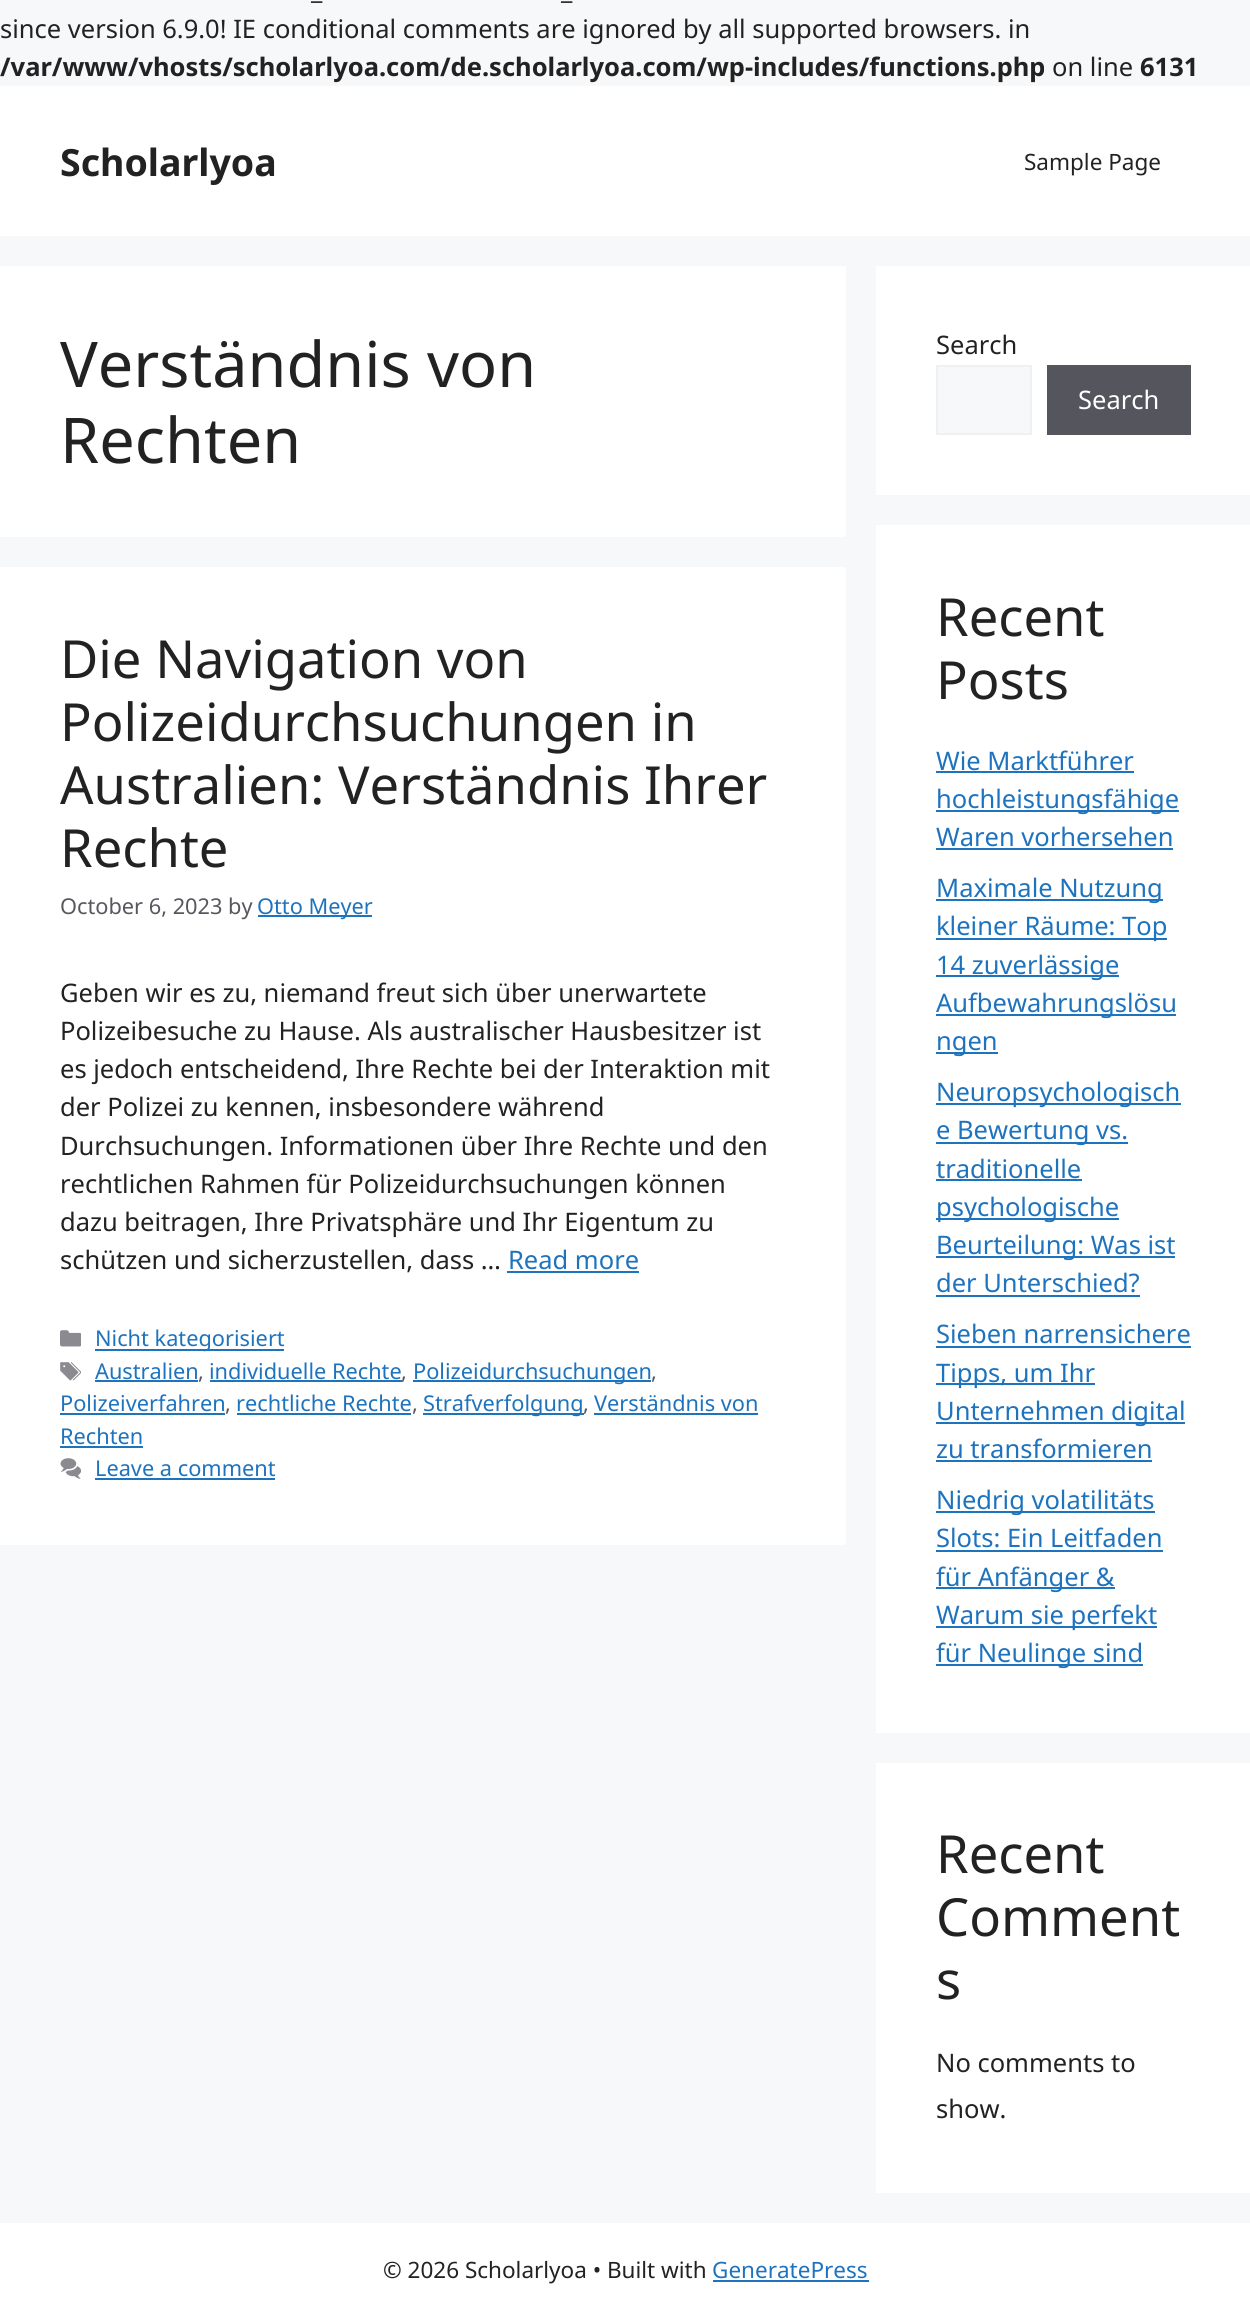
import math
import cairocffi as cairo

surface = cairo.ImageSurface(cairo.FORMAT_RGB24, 1250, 2316)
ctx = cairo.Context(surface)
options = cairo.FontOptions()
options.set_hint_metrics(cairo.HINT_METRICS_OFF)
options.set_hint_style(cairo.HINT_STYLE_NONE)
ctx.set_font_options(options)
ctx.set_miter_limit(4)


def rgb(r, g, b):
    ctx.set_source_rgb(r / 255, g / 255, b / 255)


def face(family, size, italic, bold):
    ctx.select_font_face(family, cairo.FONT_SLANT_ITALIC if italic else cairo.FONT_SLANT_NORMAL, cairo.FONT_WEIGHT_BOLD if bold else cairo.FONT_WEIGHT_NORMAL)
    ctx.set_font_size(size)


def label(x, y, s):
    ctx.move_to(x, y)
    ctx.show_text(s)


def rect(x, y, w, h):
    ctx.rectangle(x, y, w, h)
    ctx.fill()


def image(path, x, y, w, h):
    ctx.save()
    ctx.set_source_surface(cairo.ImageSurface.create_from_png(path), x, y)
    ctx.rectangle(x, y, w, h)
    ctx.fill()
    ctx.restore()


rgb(247, 248, 249)
ctx.paint()
face('Noto Sans', 25.5, 0, 0)
rgb(34, 34, 34)
label(311, -1, '_')
label(561, -1, '_')
label(0, 38, 'since version 6.9.0! IE conditional comments are ignored by all supported browsers. in')
face('Noto Sans', 25.5, 0, 1)
label(0, 76, '/var/www/vhosts/scholarlyoa.com/de.scholarlyoa.com/wp-includes/functions.php')
face('Noto Sans', 25.5, 0, 0)
label(1052, 76, 'on line')
face('Noto Sans', 25.5, 0, 1)
label(1140, 76, '6131')
rgb(255, 255, 255)
rect(0, 86, 1250, 150)
face('Noto Sans', 37.5, 0, 1)
rgb(34, 34, 34)
label(60, 176, 'Scholarlyoa')
face('Noto Sans', 22.5, 0, 0)
label(1024, 170, 'Sample Page')
rgb(255, 255, 255)
rect(0, 266, 846, 271)
face('Noto Sans', 63, 0, 0)
rgb(34, 34, 34)
label(60, 387, 'Verständnis von')
label(60, 463, 'Rechten')
rgb(255, 255, 255)
rect(0, 567, 846, 978)
face('Noto Sans', 52.5, 0, 0)
rgb(34, 34, 34)
label(60, 678, 'Die Navigation von')
label(60, 741, 'Polizeidurchsuchungen in')
label(60, 804, 'Australien: Verständnis Ihrer')
label(60, 867, 'Rechte')
face('Noto Sans', 21.75, 0, 0)
rgb(87, 87, 96)
label(60, 914, 'October 6, 2023 by')
rgb(30, 115, 190)
rect(258, 915, 114, 2)
label(257, 914, 'Otto Meyer')
face('Noto Sans', 25.5, 0, 0)
rgb(34, 34, 34)
label(60, 1002, 'Geben wir es zu, niemand freut sich über unerwartete')
label(60, 1040, 'Polizeibesuche zu Hause. Als australischer Hausbesitzer ist')
label(60, 1078, 'es jedoch entscheidend, Ihre Rechte bei der Interaktion mit')
label(60, 1116, 'der Polizei zu kennen, insbesondere während')
label(60, 1155, 'Durchsuchungen. Informationen über Ihre Rechte und den')
label(60, 1193, 'rechtlichen Rahmen für Polizeidurchsuchungen können')
label(60, 1231, 'dazu beitragen, Ihre Privatsphäre und Ihr Eigentum zu')
label(60, 1269, 'schützen und sicherzustellen, dass …')
rgb(30, 115, 190)
label(508, 1269, 'Read more')
rect(507, 1271, 132, 2)
image('image0.png', 60, 1330, 21, 17)
rect(95, 1349, 189, 2)
face('Noto Sans', 21.75, 0, 0)
label(95, 1346, 'Nicht kategorisiert')
image('image1.png', 60, 1362, 21, 19)
label(95, 1379, 'Australien')
rect(95, 1380, 103, 2)
rgb(87, 87, 96)
label(198, 1379, ',')
rgb(30, 115, 190)
label(209, 1379, 'individuelle Rechte')
rect(210, 1380, 192, 2)
rgb(87, 87, 96)
label(401, 1379, ',')
rgb(30, 115, 190)
rect(413, 1380, 238, 2)
label(413, 1379, 'Polizeidurchsuchungen')
rgb(87, 87, 96)
label(651, 1379, ',')
rgb(30, 115, 190)
label(60, 1411, 'Polizeiverfahren')
rect(60, 1413, 165, 2)
rgb(87, 87, 96)
label(225, 1411, ',')
rgb(30, 115, 190)
label(236, 1411, 'rechtliche Rechte')
rect(237, 1413, 174, 2)
rgb(87, 87, 96)
label(412, 1411, ',')
rgb(30, 115, 190)
rect(423, 1413, 161, 2)
label(423, 1411, 'Strafverfolgung')
rgb(87, 87, 96)
label(583, 1411, ',')
rgb(30, 115, 190)
label(594, 1411, 'Verständnis von')
rect(594, 1413, 164, 2)
label(60, 1444, 'Rechten')
rect(60, 1446, 83, 2)
image('image2.png', 60, 1458, 21, 21)
label(95, 1476, 'Leave a comment')
rect(95, 1478, 180, 2)
rgb(255, 255, 255)
rect(876, 266, 374, 229)
face('Noto Sans', 25.5, 0, 0)
rgb(34, 34, 34)
label(936, 354, 'Search')
rgb(247, 248, 249)
ctx.rectangle(937, 366, 94, 68)
ctx.fill_preserve()
rgb(240, 240, 240)
ctx.stroke()
rgb(85, 85, 94)
rect(1047, 365, 144, 70)
rgb(255, 255, 255)
label(1078, 409, 'Search')
rect(876, 525, 374, 1208)
face('Noto Sans', 52.5, 0, 0)
rgb(34, 34, 34)
label(936, 636, 'Recent')
label(936, 699, 'Posts')
face('Noto Sans', 25.5, 0, 0)
rgb(30, 115, 190)
label(936, 770, 'Wie Marktführer')
rect(936, 771, 198, 2)
rect(936, 810, 243, 2)
label(936, 808, 'hochleistungsfähige')
label(936, 846, 'Waren vorhersehen')
rect(936, 848, 237, 2)
rect(936, 899, 227, 2)
label(936, 897, 'Maximale Nutzung')
rect(936, 938, 231, 2)
label(936, 935, 'kleiner Räume: Top')
rect(936, 975, 183, 2)
label(936, 974, '14 zuverlässige')
rect(936, 1014, 240, 2)
label(936, 1012, 'Aufbewahrungslösu')
rect(936, 1052, 62, 2)
label(936, 1050, 'ngen')
rect(936, 1103, 245, 2)
label(936, 1101, 'Neuropsychologisch')
rect(936, 1142, 192, 2)
label(936, 1139, 'e Bewertung vs.')
label(936, 1178, 'traditionelle')
rect(936, 1179, 146, 2)
rect(936, 1218, 183, 2)
label(936, 1216, 'psychologische')
rect(936, 1256, 239, 2)
label(936, 1254, 'Beurteilung: Was ist')
label(936, 1292, 'der Unterschied?')
rect(936, 1295, 204, 2)
label(936, 1343, 'Sieben narrensichere')
rect(936, 1346, 255, 2)
rect(936, 1383, 159, 2)
label(936, 1382, 'Tipps, um Ihr')
rect(936, 1422, 249, 2)
label(936, 1420, 'Unternehmen digital')
label(936, 1458, 'zu transformieren')
rect(936, 1460, 216, 2)
rect(936, 1511, 219, 2)
label(936, 1509, 'Niedrig volatilitäts')
label(936, 1547, 'Slots: Ein Leitfaden')
rect(936, 1550, 227, 2)
rect(936, 1587, 179, 2)
label(936, 1586, 'für Anfänger &')
rect(936, 1626, 221, 2)
label(936, 1624, 'Warum sie perfekt')
rect(936, 1664, 207, 2)
label(936, 1662, 'für Neulinge sind')
rgb(255, 255, 255)
rect(876, 1763, 374, 430)
face('Noto Sans', 52.5, 0, 0)
rgb(34, 34, 34)
label(936, 1873, 'Recent')
label(936, 1936, 'Comment')
label(936, 1999, 's')
face('Noto Sans', 25.5, 0, 0)
label(936, 2072, 'No comments to')
label(936, 2118, 'show.')
rgb(255, 255, 255)
rect(0, 2223, 1250, 93)
face('Noto Sans', 22.5, 0, 0)
rgb(34, 34, 34)
label(383, 2278, '© 2026 Scholarlyoa • Built with')
rgb(30, 115, 190)
label(712, 2278, 'GeneratePress')
rect(713, 2280, 156, 2)
surface.write_to_png('render.png')
